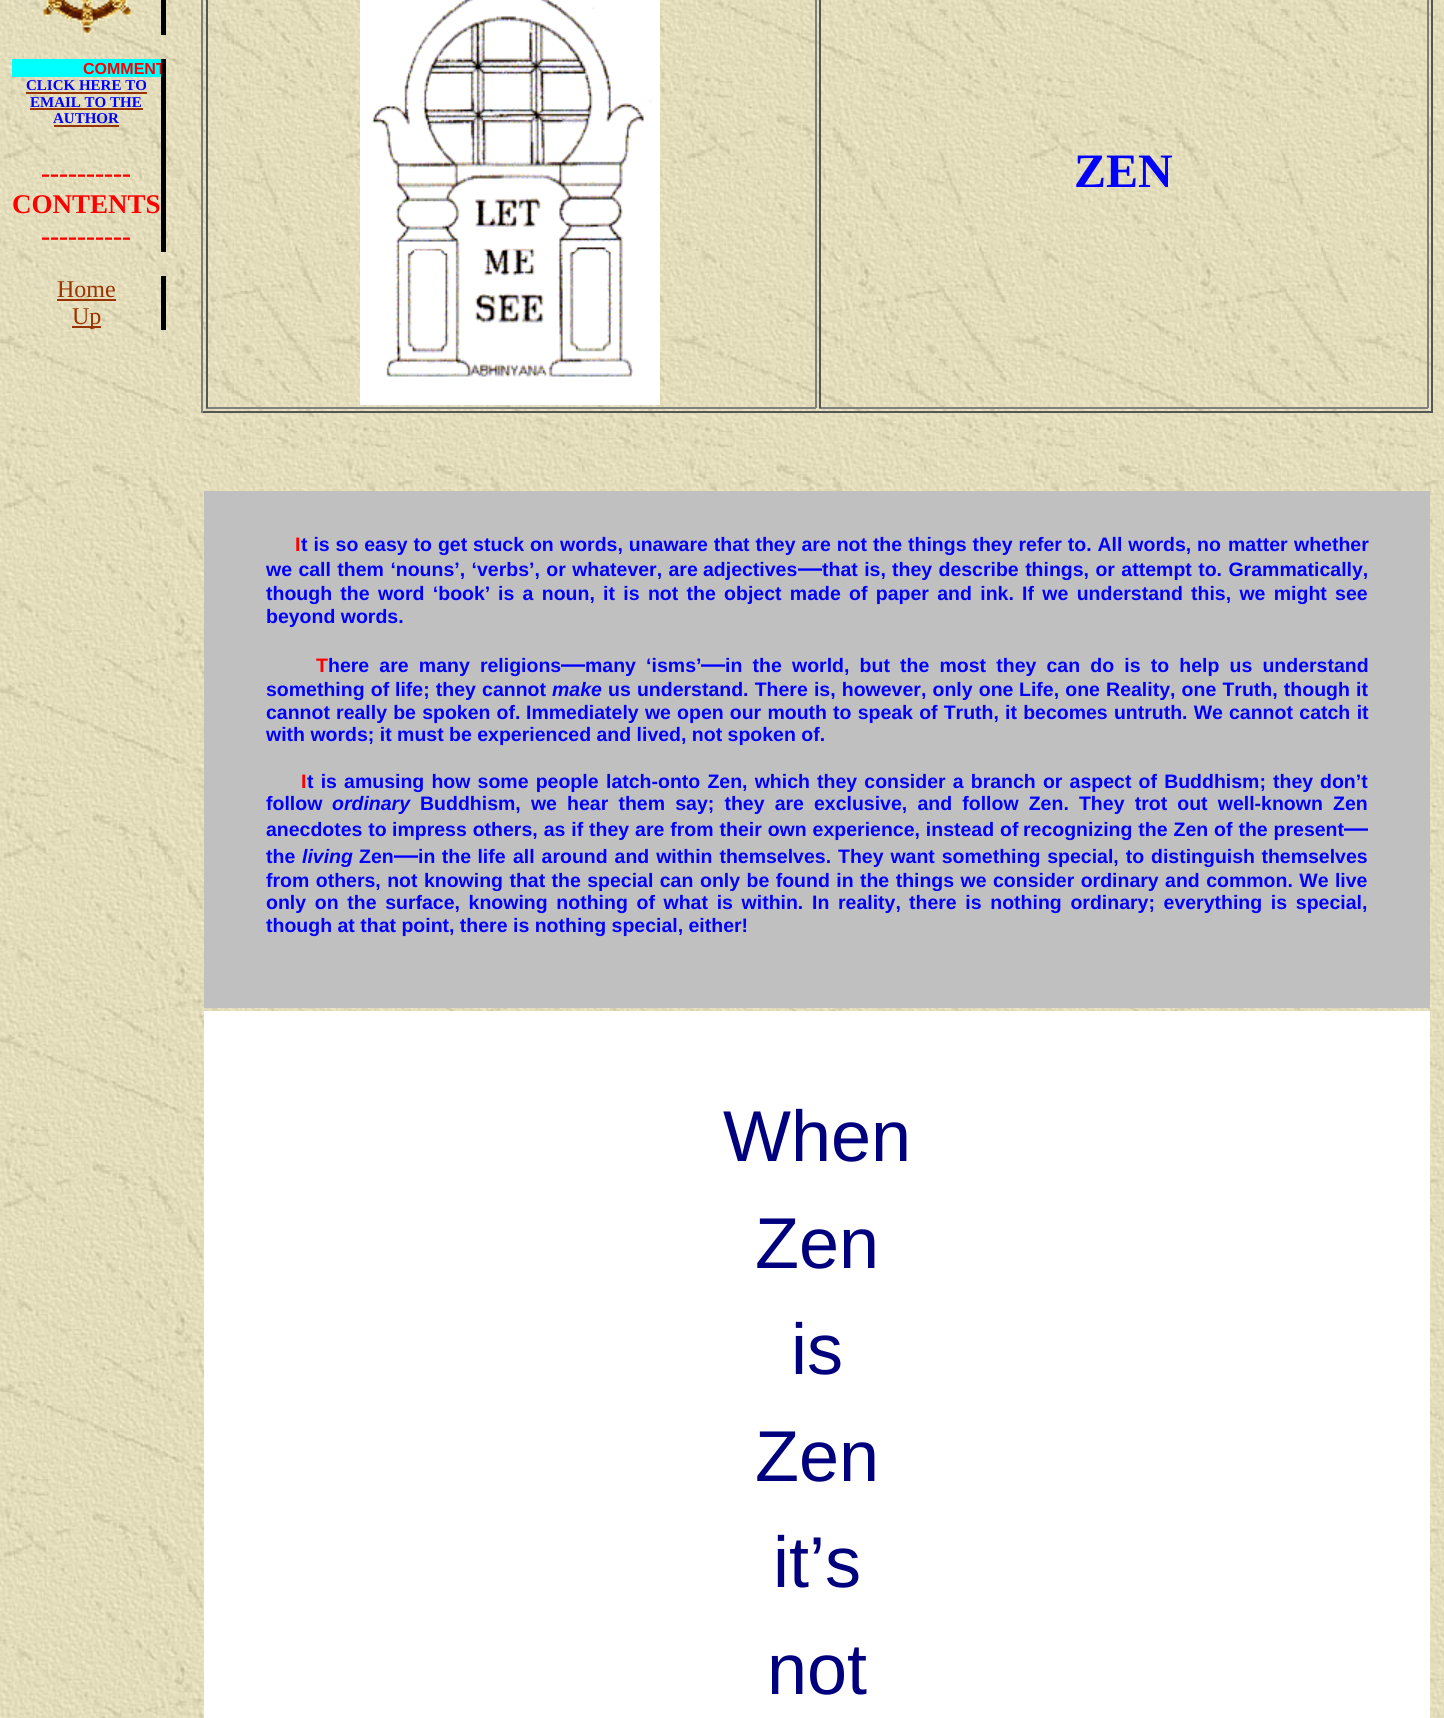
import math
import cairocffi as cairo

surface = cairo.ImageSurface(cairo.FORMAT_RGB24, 1444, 1718)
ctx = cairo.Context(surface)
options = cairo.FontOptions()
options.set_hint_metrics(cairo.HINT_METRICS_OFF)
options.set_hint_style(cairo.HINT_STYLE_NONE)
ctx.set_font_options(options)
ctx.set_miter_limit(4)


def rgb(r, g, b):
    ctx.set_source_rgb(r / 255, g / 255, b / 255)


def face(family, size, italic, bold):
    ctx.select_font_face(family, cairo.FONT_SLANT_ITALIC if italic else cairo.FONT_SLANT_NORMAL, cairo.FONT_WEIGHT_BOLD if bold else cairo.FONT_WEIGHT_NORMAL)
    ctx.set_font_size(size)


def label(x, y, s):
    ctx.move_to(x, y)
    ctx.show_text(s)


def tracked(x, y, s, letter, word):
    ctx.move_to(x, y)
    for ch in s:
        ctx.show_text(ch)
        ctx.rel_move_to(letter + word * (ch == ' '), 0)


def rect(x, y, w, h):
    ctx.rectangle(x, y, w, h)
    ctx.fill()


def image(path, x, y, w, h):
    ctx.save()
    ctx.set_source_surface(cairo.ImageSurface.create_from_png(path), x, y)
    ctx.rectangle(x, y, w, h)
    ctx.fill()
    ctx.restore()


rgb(255, 255, 255)
ctx.paint()
image('image0.png', 0, 0, 1444, 1718)
rgb(0, 0, 0)
rect(161, 0, 5, 35)
image('image1.png', 43, 0, 88, 35)
rect(161, 59, 5, 193)
rgb(0, 255, 255)
rect(12, 59, 149, 18)
ctx.save()
ctx.rectangle(12, 59, 149, 18)
ctx.clip()
face('Liberation Sans', 16, 0, 1)
rgb(255, 0, 0)
label(83, 74, 'COMMENT')
ctx.restore()
face('Liberation Serif', 15, 0, 1)
rgb(0, 0, 255)
label(26, 90, 'CLICK HERE TO')
rgb(153, 51, 0)
rect(26, 92, 121, 2)
rgb(0, 0, 255)
label(30, 107, 'EMAIL TO THE')
rgb(153, 51, 0)
rect(30, 108, 113, 2)
rgb(0, 0, 255)
label(53, 123, 'AUTHOR')
rgb(153, 51, 0)
rect(54, 125, 65, 2)
face('Liberation Serif', 27, 0, 1)
rgb(255, 0, 0)
label(41, 182, '----------')
label(12, 213, 'CONTENTS')
label(41, 245, '----------')
rgb(0, 0, 0)
rect(161, 276, 5, 54)
face('Liberation Serif', 24, 0, 0)
rgb(153, 51, 0)
label(57, 297, 'Home')
rect(57, 299, 59, 2)
rect(72, 326, 29, 2)
label(72, 324, 'Up')
rgb(85, 85, 85)
rect(1431, 0, 2, 413)
rect(201, 411, 1232, 2)
rgb(128, 128, 128)
rect(201, 0, 2, 413)
rect(815, 0, 2, 408)
rect(206, 407, 610, 2)
rgb(85, 85, 85)
rect(206, 0, 2, 408)
image('image2.png', 360, 0, 300, 405)
rgb(128, 128, 128)
rect(1427, 0, 2, 408)
rect(819, 407, 609, 2)
rgb(85, 85, 85)
rect(819, 0, 2, 408)
face('Liberation Serif', 48, 0, 1)
rgb(0, 0, 255)
label(1074, 187, 'ZEN')
rgb(192, 192, 192)
rect(204, 491, 1226, 517)
face('Liberation Sans', 19.5, 0, 1)
rgb(255, 0, 0)
label(295, 551, 'I')
rgb(0, 0, 255)
tracked(301, 551, 't is so easy to get stuck on', 0, 0.5)
tracked(560, 551, 'words, unaware that they are not the things they refer to. All words, no', 0, 0.5)
tracked(1228, 551, 'matter whether', 0, 1)
tracked(266, 576, 'we call them ‘nouns’, ‘verbs’, or whatever, are', 0, 1)
label(703, 576, 'adjectives')
face('Liberation Sans', 24, 0, 1)
label(798, 576, '—')
face('Liberation Sans', 19.5, 0, 1)
tracked(822, 576, 'that is,', 0, 1)
tracked(892, 576, 'they describe things, or attempt to. Grammatically,', 0, 1)
tracked(266, 600, 'though the word ‘book’', 0, 2.9)
tracked(498, 600, 'is a noun, it is not the object made of paper and ink. If we understand', 0, 2.9)
tracked(1191, 600, 'this, we might see', 0, 2.9)
label(266, 623, 'beyond words.')
rgb(255, 0, 0)
label(316, 672, 'T')
rgb(0, 0, 255)
tracked(328, 672, 'here are many religions', 0, 4.75)
face('Liberation Sans', 24, 0, 1)
label(561, 672, '—')
face('Liberation Sans', 19.5, 0, 1)
tracked(585, 672, 'many ‘isms’', 0, 4.75)
face('Liberation Sans', 24, 0, 1)
label(701, 672, '—')
face('Liberation Sans', 19.5, 0, 1)
tracked(725, 672, 'in the', 0, 4.75)
tracked(792, 672, 'world, but the most they can do is to help us understand', 0, 4.75)
tracked(266, 696, 'something of', 0, 0.75)
tracked(395, 696, 'life; they cannot', 0, 0.75)
face('Liberation Sans', 19.5, 1, 1)
label(552, 696, 'make')
face('Liberation Sans', 19.5, 0, 1)
tracked(608, 696, 'us understand. There is, however, only one', 0, 0.75)
tracked(1019, 696, 'Life, one Reality, one Truth, though it', 0, 0.75)
tracked(266, 719, 'cannot really be spoken of.', 0, 0.75)
tracked(526, 719, 'Immediately we open our mouth to speak of Truth, it becomes untruth. We', 0, 0.75)
tracked(1229, 719, 'cannot catch it', 0, 1)
label(266, 741, 'with words; it must be experienced and lived, not spoken of.')
rgb(255, 0, 0)
label(301, 788, 'I')
rgb(0, 0, 255)
tracked(307, 788, 't is amusing how some people', 0, 1.75)
tracked(606, 788, 'latch-onto Zen, which they consider a branch or aspect of Buddhism; they', 0, 1.75)
label(1320, 788, 'don’t')
label(266, 810, 'follow')
face('Liberation Sans', 19.5, 1, 1)
label(332, 810, 'ordinary')
face('Liberation Sans', 19.5, 0, 1)
tracked(420, 810, 'Buddhism, we hear them say; they are', 0, 4.75)
tracked(814, 810, 'exclusive, and follow Zen. They trot out well-known Zen', 0, 4.75)
tracked(266, 836, 'anecdotes to', 0, 0.5)
tracked(392, 836, 'impress others, as if they are from their own experience, instead of', 0, 0.5)
tracked(1023, 836, 'recognizing the Zen of the present', 0, 0.5)
face('Liberation Sans', 24, 0, 1)
label(1344, 836, '—')
face('Liberation Sans', 19.5, 0, 1)
label(266, 863, 'the')
face('Liberation Sans', 19.5, 1, 1)
label(302, 863, 'living')
face('Liberation Sans', 19.5, 0, 1)
label(359, 863, 'Zen')
face('Liberation Sans', 24, 0, 1)
label(394, 863, '—')
face('Liberation Sans', 19.5, 0, 1)
tracked(418, 863, 'in the life', 0, 1)
tracked(513, 863, 'all around and within themselves. They want something special, to', 0, 1.5)
tracked(1151, 863, 'distinguish themselves', 0, 1)
tracked(266, 887, 'from others, not knowing that the special can', 0, 1)
tracked(700, 887, 'only be found in the things we consider ordinary and common. We live', 0, 1)
tracked(266, 909, 'only on the surface, knowing nothing of what is within. In reality,', 0, 3.25)
tracked(909, 909, 'there is nothing ordinary; everything is special,', 0, 3.25)
label(266, 932, 'though at that point, there is nothing special, either!')
rgb(255, 255, 255)
rect(204, 1011, 1226, 707)
face('Liberation Sans', 72, 0, 0)
rgb(0, 0, 127)
label(723, 1161, 'When')
label(755, 1268, 'Zen')
label(791, 1374, 'is')
label(755, 1481, 'Zen')
label(773, 1587, 'it’s')
label(767, 1694, 'not')
surface.write_to_png('render.png')
